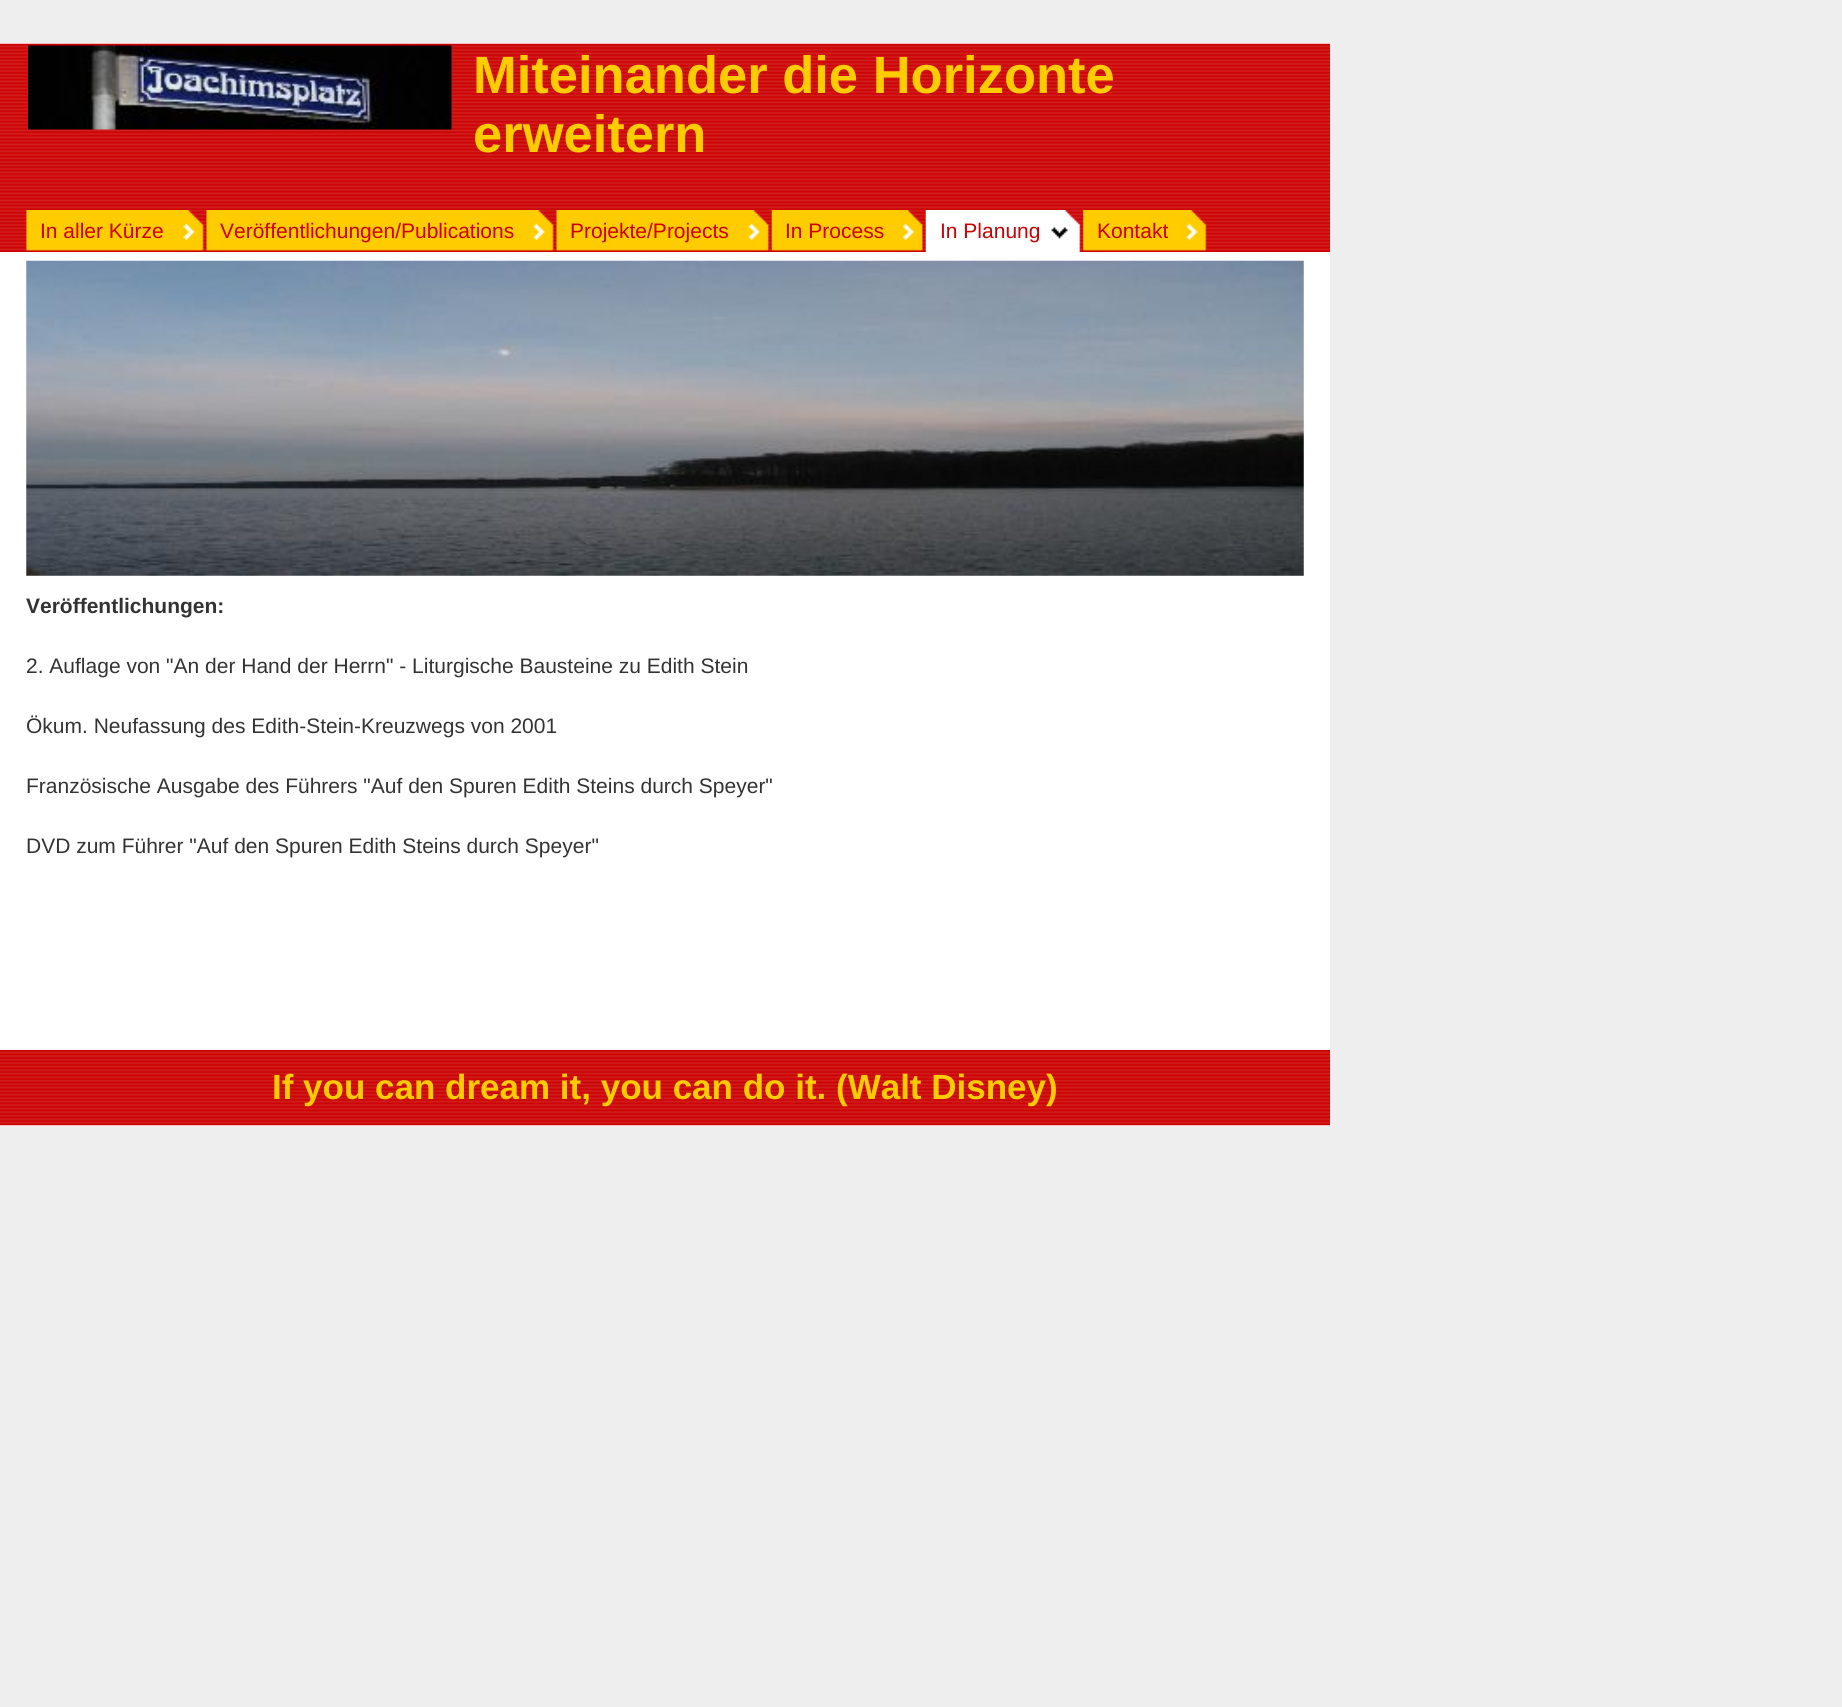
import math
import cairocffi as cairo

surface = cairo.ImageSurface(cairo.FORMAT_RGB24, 1842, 1707)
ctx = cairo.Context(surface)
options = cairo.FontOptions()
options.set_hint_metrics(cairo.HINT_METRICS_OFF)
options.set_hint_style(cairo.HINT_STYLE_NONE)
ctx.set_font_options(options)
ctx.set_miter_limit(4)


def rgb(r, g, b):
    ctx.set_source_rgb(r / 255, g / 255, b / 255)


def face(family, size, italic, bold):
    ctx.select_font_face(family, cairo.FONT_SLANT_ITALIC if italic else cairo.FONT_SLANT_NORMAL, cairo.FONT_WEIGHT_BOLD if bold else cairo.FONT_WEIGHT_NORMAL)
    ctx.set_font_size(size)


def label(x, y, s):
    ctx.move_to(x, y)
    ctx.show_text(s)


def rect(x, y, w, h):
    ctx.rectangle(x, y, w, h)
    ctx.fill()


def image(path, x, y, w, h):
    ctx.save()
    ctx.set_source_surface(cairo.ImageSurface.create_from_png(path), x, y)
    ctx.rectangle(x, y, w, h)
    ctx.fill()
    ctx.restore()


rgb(238, 238, 238)
ctx.paint()
rgb(255, 255, 255)
rect(0, 43, 1330, 1083)
image('image0.png', 0, 43, 1330, 209)
image('image1.png', 28, 45, 424, 85)
face('Liberation Sans', 52.5, 0, 1)
rgb(255, 204, 0)
label(473, 93, 'Miteinander die Horizonte')
label(473, 152, 'erweitern')
image('image2.png', 26, 210, 178, 41)
face('Liberation Sans', 21, 0, 0)
rgb(204, 0, 0)
label(40, 238, 'In aller Kürze')
image('image3.png', 206, 210, 348, 41)
label(220, 238, 'Veröffentlichungen/Publications')
image('image4.png', 556, 210, 213, 41)
label(570, 238, 'Projekte/Projects')
image('image5.png', 771, 210, 152, 41)
label(785, 238, 'In Process')
image('image6.png', 925, 210, 156, 42)
label(940, 238, 'In Planung')
image('image7.png', 1083, 210, 124, 41)
label(1097, 238, 'Kontakt')
image('image8.png', 26, 260, 1278, 316)
face('Liberation Sans', 21, 0, 1)
rgb(51, 51, 51)
label(26, 613, 'Veröffentlichungen:')
face('Liberation Sans', 21, 0, 0)
label(26, 673, '2. Auflage von "An der Hand der Herrn" - Liturgische Bausteine zu Edith Stein')
label(26, 733, 'Ökum. Neufassung des Edith-Stein-Kreuzwegs von 2001')
label(26, 793, 'Französische Ausgabe des Führers "Auf den Spuren Edith Steins durch Speyer"')
label(26, 853, 'DVD zum Führer "Auf den Spuren Edith Steins durch Speyer"')
image('image9.png', 0, 1050, 1330, 76)
face('Liberation Sans', 35, 0, 1)
rgb(255, 204, 0)
label(272, 1099, 'If you can dream it, you can do it. (Walt Disney)')
surface.write_to_png('render.png')
